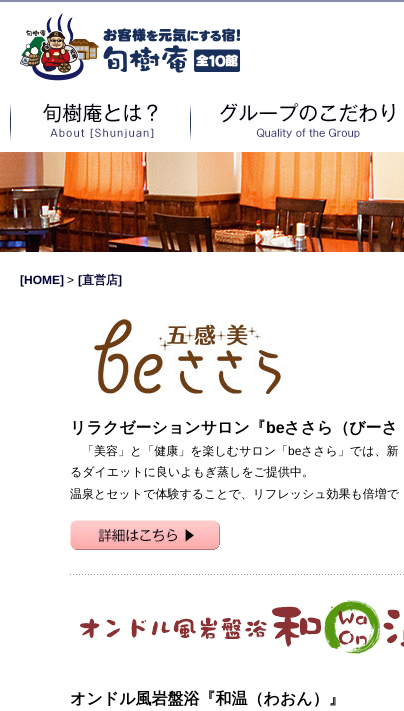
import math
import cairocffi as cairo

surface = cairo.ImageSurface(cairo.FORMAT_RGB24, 404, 711)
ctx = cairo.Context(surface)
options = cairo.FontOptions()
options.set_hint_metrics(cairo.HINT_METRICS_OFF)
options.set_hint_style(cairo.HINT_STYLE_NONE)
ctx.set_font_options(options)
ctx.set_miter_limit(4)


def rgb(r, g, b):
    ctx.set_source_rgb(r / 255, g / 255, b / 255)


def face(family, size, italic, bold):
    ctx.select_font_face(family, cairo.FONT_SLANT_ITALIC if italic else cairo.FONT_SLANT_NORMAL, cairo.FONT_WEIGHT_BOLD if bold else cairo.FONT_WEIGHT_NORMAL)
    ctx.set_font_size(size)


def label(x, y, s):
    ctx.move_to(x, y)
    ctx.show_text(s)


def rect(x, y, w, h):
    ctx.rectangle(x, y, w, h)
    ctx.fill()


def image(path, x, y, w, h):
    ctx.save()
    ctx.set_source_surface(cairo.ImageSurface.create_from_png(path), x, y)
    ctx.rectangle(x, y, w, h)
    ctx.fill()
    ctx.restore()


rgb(255, 255, 255)
ctx.paint()
rgb(139, 141, 176)
rect(0, 0, 404, 2)
image('image0.png', 20, 13, 221, 68)
image('image1.png', 10, 102, 148, 40)
image('image2.png', 190, 102, 206, 40)
image('image3.png', 0, 152, 404, 100)
face('Liberation Sans', 12, 0, 1)
rgb(0, 0, 51)
label(20, 284, '[HOME]')
face('Liberation Sans', 12, 0, 0)
rgb(0, 0, 0)
label(67, 284, '>')
face('Liberation Sans', 12, 0, 1)
rgb(0, 0, 51)
label(78, 284, '[')
face('WenQuanYi Zen Hei', 12, 0, 1)
label(82, 284, '直営店')
face('Liberation Sans', 12, 0, 1)
label(118, 284, ']')
image('image4.png', 94, 319, 192, 75)
face('WenQuanYi Zen Hei', 16, 0, 1)
rgb(0, 0, 0)
label(70, 433, 'リラクゼーションサロン『')
face('Liberation Sans', 16, 0, 1)
label(266, 433, 'be')
face('WenQuanYi Zen Hei', 16, 0, 1)
label(284, 433, 'ささら（びーさ')
face('WenQuanYi Zen Hei Medium', 12, 0, 0)
label(82, 455, '「美容」と「健康」を楽しむサロン「')
face('Liberation Sans', 12, 0, 0)
label(288, 455, 'be')
face('WenQuanYi Zen Hei Medium', 12, 0, 0)
label(301, 455, 'ささら」では、新')
label(70, 476, 'るダイエットに良いよもぎ蒸しをご提供中。')
label(70, 498, '温泉とセットで体験することで、リフレッシュ効果も倍増で')
image('image5.png', 70, 520, 150, 30)
image('image6.png', 70, 574, 334, 1)
image('image7.png', 78, 598, 326, 56)
face('WenQuanYi Zen Hei', 16, 0, 1)
label(70, 704, 'オンドル風岩盤浴『和温（わおん）』')
surface.write_to_png('render.png')
